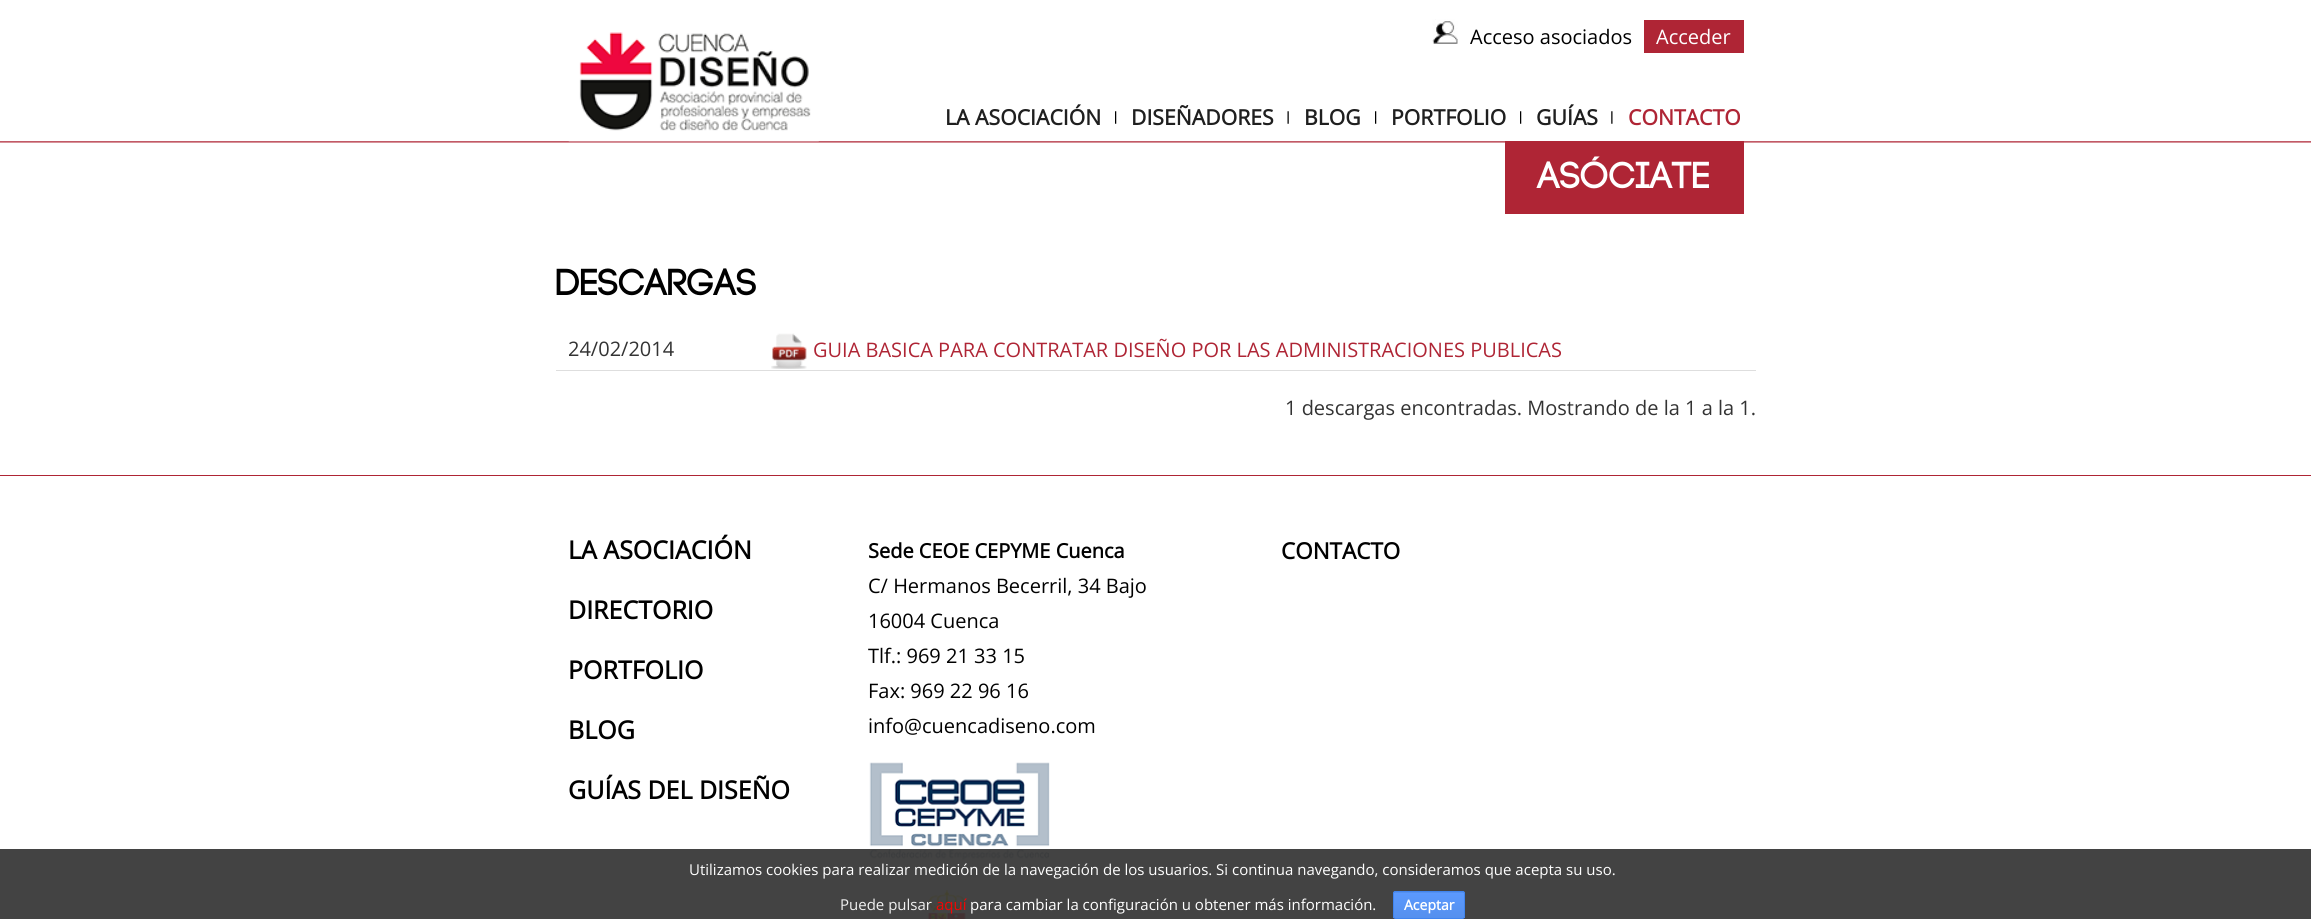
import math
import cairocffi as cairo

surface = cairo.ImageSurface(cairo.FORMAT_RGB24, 2311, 919)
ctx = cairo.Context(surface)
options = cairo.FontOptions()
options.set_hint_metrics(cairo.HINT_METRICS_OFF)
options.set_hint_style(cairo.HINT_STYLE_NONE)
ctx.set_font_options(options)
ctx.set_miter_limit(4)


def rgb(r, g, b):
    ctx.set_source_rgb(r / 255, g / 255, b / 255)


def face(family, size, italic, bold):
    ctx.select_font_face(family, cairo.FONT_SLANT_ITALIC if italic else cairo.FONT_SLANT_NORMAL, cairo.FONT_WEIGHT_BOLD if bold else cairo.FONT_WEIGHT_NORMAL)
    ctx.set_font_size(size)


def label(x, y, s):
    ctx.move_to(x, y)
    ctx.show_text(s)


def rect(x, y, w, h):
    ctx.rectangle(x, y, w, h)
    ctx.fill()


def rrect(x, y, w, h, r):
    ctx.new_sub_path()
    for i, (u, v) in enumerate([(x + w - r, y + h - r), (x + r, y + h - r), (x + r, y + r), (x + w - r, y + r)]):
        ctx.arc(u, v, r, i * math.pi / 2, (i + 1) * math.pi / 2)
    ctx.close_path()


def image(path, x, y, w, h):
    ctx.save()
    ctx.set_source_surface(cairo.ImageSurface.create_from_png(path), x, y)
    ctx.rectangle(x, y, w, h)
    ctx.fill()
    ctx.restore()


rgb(255, 255, 255)
ctx.paint()
image('image0.png', 0, 141, 2311, 2)
image('image1.png', 568, 32, 251, 110)
image('image2.png', 1432, 19, 26, 25)
face('Open Sans', 20, 0, 0)
rgb(0, 0, 0)
label(1470, 44, 'Acceso asociados')
rgb(175, 37, 53)
rect(1644, 20, 100, 33)
rgb(255, 255, 255)
label(1656, 44, 'Acceder')
rgb(175, 37, 53)
rect(1505, 141, 239, 73)
face('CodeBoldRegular', 37.5, 0, 1)
rgb(255, 255, 255)
label(1538, 188, 'ASÓCIATE')
image('image3.png', 1115, 111, 2, 13)
face('Open Sans', 21.25, 0, 1)
rgb(31, 31, 31)
label(945, 125, 'LA ASOCIACIÓN')
image('image4.png', 1287, 111, 2, 13)
label(1131, 125, 'DISEÑADORES')
image('image3.png', 1375, 111, 2, 13)
label(1304, 125, 'BLOG')
image('image3.png', 1520, 111, 2, 13)
label(1391, 125, 'PORTFOLIO')
image('image5.png', 1611, 111, 2, 13)
label(1536, 125, 'GUÍAS')
rgb(175, 37, 53)
label(1628, 125, 'CONTACTO')
face('CodeBoldRegular', 37.5, 0, 1)
rgb(0, 0, 0)
label(556, 295, 'Descargas')
rgb(222, 222, 222)
rect(556, 370, 1200, 1)
face('Open Sans', 20, 0, 0)
rgb(51, 51, 51)
label(568, 356, '24/02/2014')
image('image6.png', 771, 333, 36, 36)
rgb(175, 37, 53)
label(813, 357, 'GUIA BASICA PARA CONTRATAR DISEÑO POR LAS ADMINISTRACIONES PUBLICAS')
rgb(51, 51, 51)
label(1285, 415, '1 descargas encontradas. Mostrando de la 1 a la 1.')
rgb(175, 37, 53)
rect(0, 475, 2311, 1)
face('Open Sans', 25, 0, 1)
rgb(0, 0, 0)
label(568, 559, 'LA ASOCIACIÓN')
label(568, 619, 'DIRECTORIO')
label(568, 679, 'PORTFOLIO')
label(568, 739, 'BLOG')
label(568, 799, 'GUÍAS DEL DISEÑO')
face('Open Sans', 20, 0, 1)
label(868, 558, 'Sede CEOE CEPYME Cuenca')
face('Open Sans', 20, 0, 0)
label(868, 593, 'C/ Hermanos Becerril, 34 Bajo')
label(868, 628, '16004 Cuenca')
label(868, 663, 'Tlf.: 969 21 33 15')
label(868, 698, 'Fax: 969 22 96 16')
label(868, 733, 'info@cuencadiseno.com')
image('image7.png', 869, 762, 181, 99)
image('image8.png', 928, 890, 38, 29)
face('Open Sans', 22.5, 0, 1)
label(1281, 559, 'CONTACTO')
ctx.set_source_rgba(0.2, 0.2, 0.2, 0.92)
rect(0, 849, 2311, 70)
face('Open Sans', 15, 0, 0)
rgb(255, 255, 255)
label(689, 875, 'Utilizamos cookies para realizar medición de la navegación de los usuarios. Si continua navegando, consideramos que acepta su uso.')
rgb(240, 240, 240)
label(840, 910, 'Puede pulsar')
rgb(240, 5, 5)
label(936, 910, 'aquí')
rgb(255, 255, 255)
label(970, 910, 'para cambiar la configuración u obtener más información.')
ctx.save()
rrect(1393, 891, 72, 28, 2.5)
ctx.clip()
gradient = cairo.LinearGradient(1429, 868, 1429, 893)
gradient.add_color_stop_rgba(0, 0.357, 0.6, 0.996, 1)
gradient.add_color_stop_rgba(1, 0.333, 0.565, 0.933, 1)
ctx.set_source(gradient)
rect(1393, 891, 72, 2)
ctx.restore()
gradient = cairo.LinearGradient(1429, 893, 1429, 918)
gradient.add_color_stop_rgba(0, 0.357, 0.6, 0.996, 1)
gradient.add_color_stop_rgba(1, 0.333, 0.565, 0.933, 1)
ctx.set_source(gradient)
rect(1393, 893, 72, 25)
rrect(1393.5, 891.5, 71, 27, 2)
rgb(64, 132, 238)
ctx.set_line_width(1)
ctx.stroke()
face('Open Sans', 14, 0, 1)
rgb(255, 255, 255)
label(1404, 910, 'Aceptar')
surface.write_to_png('render.png')
